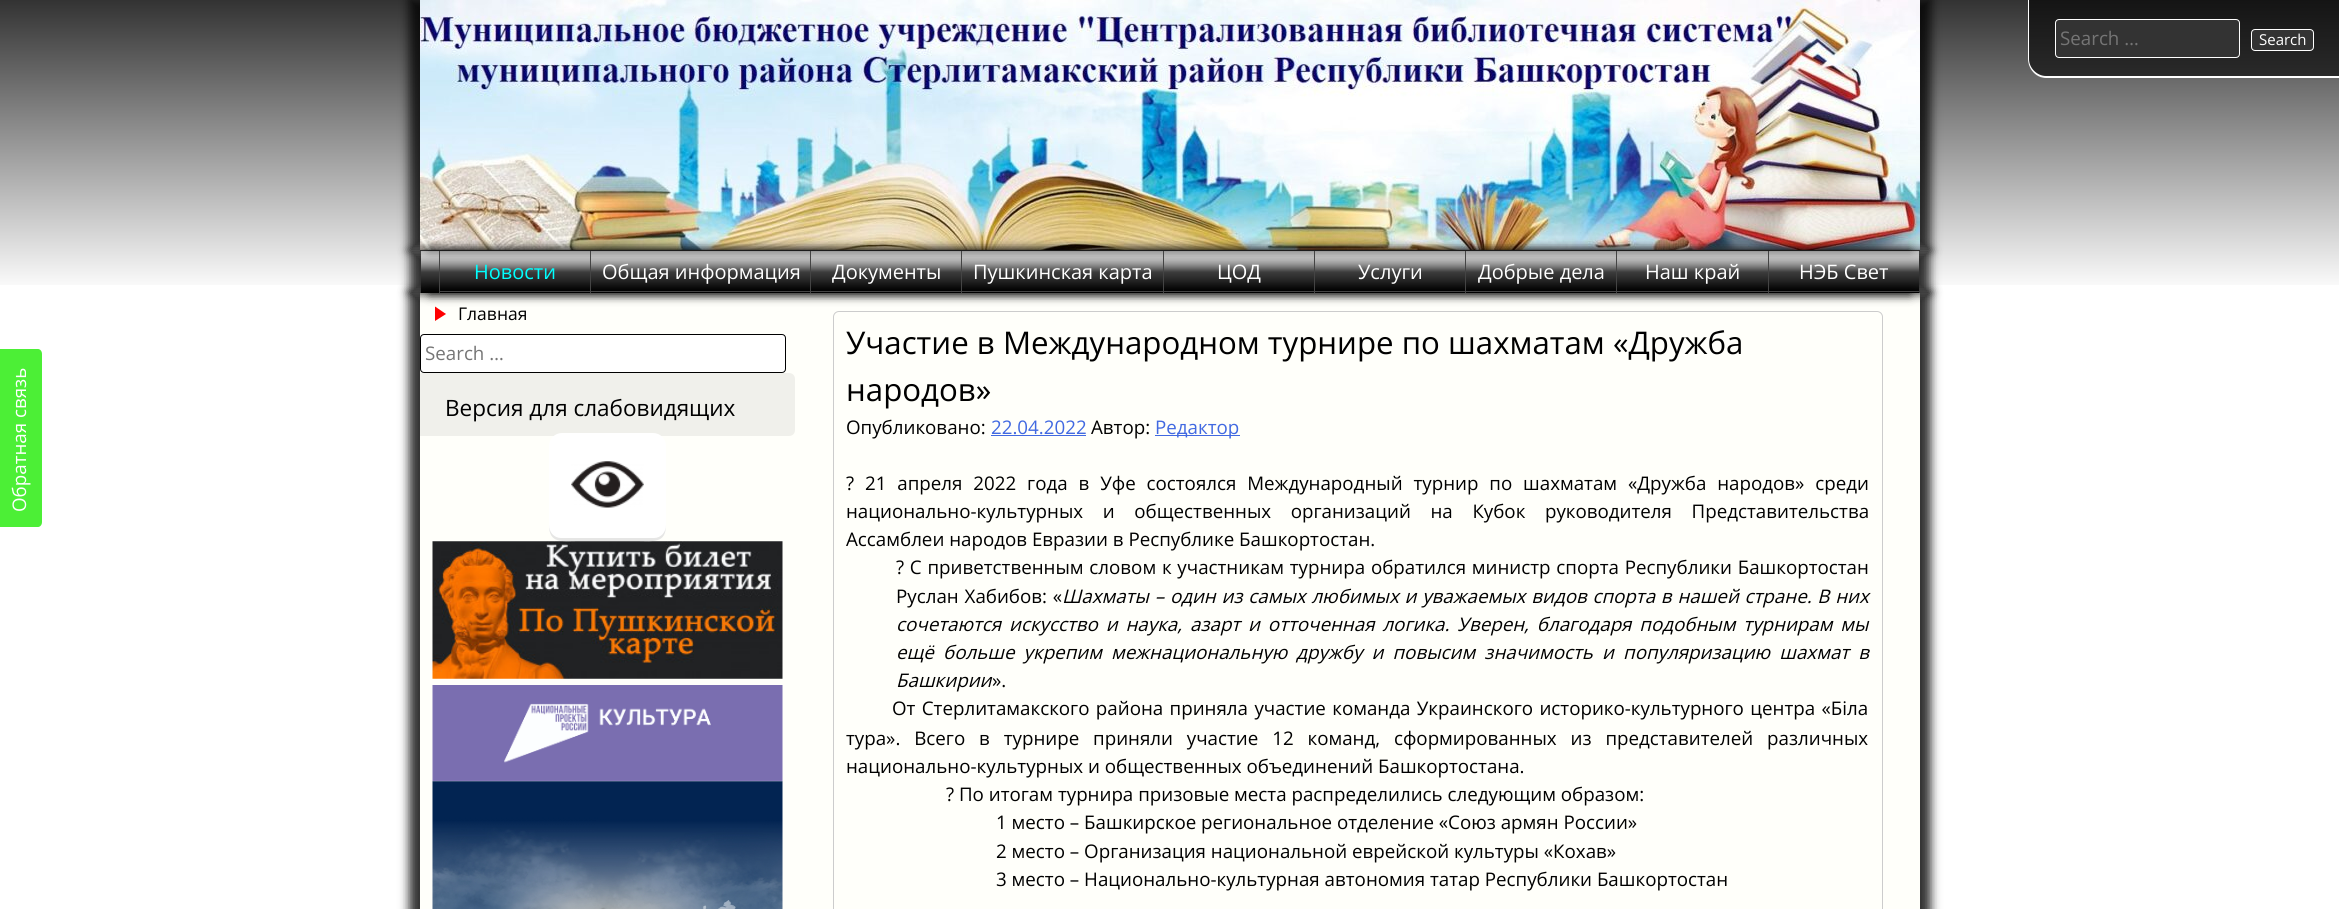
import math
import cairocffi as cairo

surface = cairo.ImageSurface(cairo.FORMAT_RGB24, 2339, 909)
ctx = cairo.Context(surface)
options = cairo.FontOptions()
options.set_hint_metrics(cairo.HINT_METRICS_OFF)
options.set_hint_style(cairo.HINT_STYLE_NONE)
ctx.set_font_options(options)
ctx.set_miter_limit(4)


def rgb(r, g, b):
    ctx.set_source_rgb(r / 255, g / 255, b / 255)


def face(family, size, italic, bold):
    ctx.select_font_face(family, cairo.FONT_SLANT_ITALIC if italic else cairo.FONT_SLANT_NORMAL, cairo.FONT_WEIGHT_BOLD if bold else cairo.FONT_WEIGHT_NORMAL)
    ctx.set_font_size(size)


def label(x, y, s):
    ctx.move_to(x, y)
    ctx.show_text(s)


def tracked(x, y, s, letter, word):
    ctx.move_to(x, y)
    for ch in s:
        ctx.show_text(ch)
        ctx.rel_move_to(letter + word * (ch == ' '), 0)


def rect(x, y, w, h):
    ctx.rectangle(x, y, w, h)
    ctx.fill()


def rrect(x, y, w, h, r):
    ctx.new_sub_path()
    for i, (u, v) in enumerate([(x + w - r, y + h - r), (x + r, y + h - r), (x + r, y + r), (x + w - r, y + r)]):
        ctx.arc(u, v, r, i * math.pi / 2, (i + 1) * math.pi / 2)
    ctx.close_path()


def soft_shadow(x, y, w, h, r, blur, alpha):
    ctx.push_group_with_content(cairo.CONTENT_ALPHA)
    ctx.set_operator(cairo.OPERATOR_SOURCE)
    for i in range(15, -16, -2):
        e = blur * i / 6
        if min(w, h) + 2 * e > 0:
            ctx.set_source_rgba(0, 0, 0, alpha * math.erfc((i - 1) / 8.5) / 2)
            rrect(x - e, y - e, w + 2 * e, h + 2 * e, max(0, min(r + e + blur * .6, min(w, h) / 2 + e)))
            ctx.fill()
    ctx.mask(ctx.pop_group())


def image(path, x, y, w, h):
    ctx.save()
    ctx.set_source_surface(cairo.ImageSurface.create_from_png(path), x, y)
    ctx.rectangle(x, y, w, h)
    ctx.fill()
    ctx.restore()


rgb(255, 255, 255)
ctx.paint()
rgb(76, 239, 54)
ctx.new_path()
ctx.move_to(-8, 522)
ctx.line_to(-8, 354)
ctx.curve_to(-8, 351, -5, 349, -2, 349)
ctx.line_to(38, 349)
ctx.curve_to(40, 349, 42, 351, 42, 354)
ctx.line_to(42, 522)
ctx.curve_to(42, 525, 40, 527, 38, 527)
ctx.line_to(-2, 527)
ctx.curve_to(-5, 527, -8, 525, -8, 522)
ctx.close_path()
ctx.fill()
face('Open Sans', 18.75, 0, 0)
rgb(255, 255, 255)
ctx.save()
ctx.translate(26, 512)
ctx.rotate(-90 * math.pi / 180)
label(0, 0, 'Обратная связь')
ctx.restore()
rgb(0, 0, 0)
soft_shadow(409, 291, 1502, 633, 0, 5, 0.8)
soft_shadow(429, 291, 1502, 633, 0, 5, 0.8)
gradient = cairo.LinearGradient(1170, 0, 1170, 293)
gradient.add_color_stop_rgba(0, 0, 0, 0, 0.8)
gradient.add_color_stop_rgba(1, 0, 0, 0, 0)
ctx.set_source(gradient)
rect(0, 0, 2339, 285)
ctx.set_source_rgba(0, 0, 0, 0.6)
ctx.new_path()
ctx.move_to(2028, 0)
ctx.line_to(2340, 0)
ctx.line_to(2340, 78)
ctx.line_to(2047, 78)
ctx.curve_to(2036.5, 78, 2028, 69.5, 2028, 59)
ctx.close_path()
ctx.fill()
rgb(255, 255, 255)
ctx.set_fill_rule(cairo.FILL_RULE_EVEN_ODD)
ctx.new_path()
ctx.move_to(2028, 0)
ctx.line_to(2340, 0)
ctx.line_to(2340, 78)
ctx.line_to(2046, 78)
ctx.curve_to(2036, 78, 2028, 69, 2028, 59)
ctx.close_path()
ctx.move_to(2029, 0)
ctx.line_to(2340, 0)
ctx.line_to(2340, 76)
ctx.line_to(2046, 76)
ctx.curve_to(2037, 76, 2029, 68, 2029, 59)
ctx.close_path()
ctx.fill()
rgb(51, 51, 51)
rrect(2055.5, 19.5, 184, 38, 3.5)
ctx.fill_preserve()
rgb(255, 255, 255)
ctx.set_line_width(1)
ctx.stroke()
rgb(117, 117, 117)
label(2060, 45, 'Search …')
rgb(51, 51, 51)
rrect(2251.5, 29.5, 62, 21, 3.5)
ctx.fill_preserve()
rgb(255, 255, 255)
ctx.stroke()
face('Open Sans', 15, 0, 0)
label(2259, 45, 'Search')
rgb(0, 0, 0)
soft_shadow(409, -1, 1502, 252, 0, 5, 0.8)
soft_shadow(429, -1, 1502, 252, 0, 5, 0.8)
image('image0.png', 420, 0, 1500, 250)
rgb(85, 85, 85)
rect(420, 250, 1500, 1)
rgb(255, 255, 250)
rect(420, 293, 1500, 616)
ctx.save()
ctx.new_path()
ctx.move_to(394, 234)
ctx.line_to(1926, 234)
ctx.line_to(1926, 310)
ctx.line_to(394, 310)
ctx.close_path()
ctx.move_to(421, 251)
ctx.line_to(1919, 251)
ctx.line_to(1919, 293)
ctx.line_to(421, 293)
ctx.close_path()
ctx.clip()
rgb(0, 0, 0)
soft_shadow(410, 250, 1500, 44, 0, 5, 0.8)
ctx.restore()
ctx.save()
ctx.new_path()
ctx.move_to(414, 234)
ctx.line_to(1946, 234)
ctx.line_to(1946, 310)
ctx.line_to(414, 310)
ctx.close_path()
ctx.move_to(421, 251)
ctx.line_to(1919, 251)
ctx.line_to(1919, 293)
ctx.line_to(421, 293)
ctx.close_path()
ctx.clip()
rgb(0, 0, 0)
soft_shadow(430, 250, 1500, 44, 0, 5, 0.8)
ctx.restore()
gradient = cairo.LinearGradient(1170, 251, 1170, 293)
gradient.add_color_stop_rgba(0, 1, 1, 1, 0.4)
gradient.add_color_stop_rgba(0.5, 0, 0, 0, 0.75)
gradient.add_color_stop_rgba(1, 0, 0, 0, 1)
ctx.set_source(gradient)
rect(421, 251, 1498, 42)
rgb(68, 68, 68)
rect(439, 291, 1480, 1)
rect(439, 251, 1, 42)
face('Open Sans', 20, 0, 0)
rgb(0, 255, 255)
label(474, 279, 'Новости')
rgb(68, 68, 68)
rect(590, 251, 1, 42)
rgb(255, 255, 255)
label(602, 279, 'Общая информация')
rgb(68, 68, 68)
rect(810, 251, 1, 42)
rgb(255, 255, 255)
label(832, 279, 'Документы')
rgb(68, 68, 68)
rect(961, 251, 1, 42)
rgb(255, 255, 255)
label(973, 279, 'Пушкинская карта')
rgb(68, 68, 68)
rect(1163, 251, 1, 42)
rgb(255, 255, 255)
label(1217, 279, 'ЦОД')
rgb(68, 68, 68)
rect(1314, 251, 1, 42)
rgb(255, 255, 255)
label(1358, 279, 'Услуги')
rgb(68, 68, 68)
rect(1465, 251, 1, 42)
rgb(255, 255, 255)
label(1478, 279, 'Добрые дела')
rgb(68, 68, 68)
rect(1616, 251, 1, 42)
rgb(255, 255, 255)
label(1645, 279, 'Наш край')
rgb(68, 68, 68)
rect(1768, 251, 1, 42)
rgb(255, 255, 255)
label(1799, 279, 'НЭБ Свет')
rgb(255, 0, 0)
ctx.set_fill_rule(cairo.FILL_RULE_WINDING)
ctx.new_path()
ctx.move_to(435, 306.5)
ctx.line_to(446, 314)
ctx.line_to(435, 321)
ctx.close_path()
ctx.fill()
face('Open Sans', 17.5, 0, 0)
rgb(0, 0, 0)
label(458, 320, 'Главная')
rgb(255, 255, 255)
rrect(420.5, 334.5, 365, 38, 3.5)
ctx.fill_preserve()
rgb(0, 0, 0)
ctx.stroke()
face('Open Sans', 18.75, 0, 0)
rgb(117, 117, 117)
label(425, 360, 'Search …')
rgb(240, 240, 235)
ctx.new_path()
ctx.move_to(420, 373)
ctx.line_to(789, 373)
ctx.curve_to(792.5, 373, 795, 375.5, 795, 379)
ctx.line_to(795, 430)
ctx.curve_to(795, 433.5, 792.5, 436, 789, 436)
ctx.line_to(420, 436)
ctx.close_path()
ctx.fill()
face('Open Sans', 22.5, 0, 0)
rgb(0, 0, 0)
label(445, 416, 'Версия для слабовидящих')
rgb(255, 255, 255)
rrect(549, 433, 117, 108, 13)
ctx.fill()
image('image2.png', 432, 541, 351, 138)
rgb(230, 230, 229)
ctx.new_path()
ctx.move_to(549, 525)
ctx.curve_to(549, 544, 562, 541, 577, 541)
ctx.line_to(638, 541)
ctx.curve_to(653, 541, 666, 544, 666, 525)
ctx.curve_to(666, 532, 661, 538, 654, 538)
ctx.line_to(561, 538)
ctx.curve_to(554, 538, 549, 532, 549, 525)
ctx.close_path()
ctx.fill()
image('image1.png', 571, 461, 73, 47)
image('image3.png', 432, 685, 351, 97)
image('image4.png', 432, 781, 351, 128)
rrect(833.5, 311.5, 1049, 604, 5.5)
rgb(204, 204, 204)
ctx.stroke()
face('Open Sans', 31.25, 0, 0)
rgb(0, 0, 0)
label(846, 354, 'Участие в Международном турнире по шахматам «Дружба')
label(846, 401, 'народов»')
face('Open Sans', 18.75, 0, 0)
label(846, 434, 'Опубликовано:')
rgb(65, 105, 225)
label(991, 434, '22.04.2022')
rect(991, 435, 95, 1)
rgb(0, 0, 0)
label(1091, 434, 'Автор:')
rgb(65, 105, 225)
rect(1155, 435, 85, 1)
label(1155, 434, 'Редактор')
rgb(0, 0, 0)
tracked(846, 490, '? 21 апреля 2022 года в Уфе состоялся Международный турнир по шахматам «Дружба народов» среди', 0, 6)
tracked(846, 518, 'национально-культурных и общественных организаций на Кубок руководителя Представительства', 0, 14.75)
label(846, 546, 'Ассамблеи народов Евразии в Республике Башкортостан.')
tracked(896, 574, '? С приветственным словом к участникам турнира обратился министр спорта Республики Башкортостан', 0, 0.9)
tracked(896, 603, 'Руслан Хабибов: «', 0, 1)
face('Open Sans', 18.75, 1, 0)
tracked(1062, 603, 'Шахматы – один из самых любимых и уважаемых видов спорта в нашей стране. В них', 0, 0.9)
tracked(896, 631, 'сочетаются искусство и наука, азарт и отточенная логика. Уверен, благодаря подобным турнирам мы', 0, 3)
tracked(896, 659, 'ещё больше укрепим межнациональную дружбу и повысим значимость и популяризацию шахмат в', 0, 4.25)
label(896, 687, 'Башкирии')
face('Open Sans', 18.75, 0, 0)
label(992, 687, '».')
tracked(892, 715, 'От Стерлитамакского района приняла участие команда Украинского историко-культурного центра «Бiла', 0, 1.5)
tracked(846, 745, 'тура». Всего в турнире приняли участие 12 команд, сформированных из представителей различных', 0, 9)
label(846, 773, 'национально-культурных и общественных объединений Башкортостана.')
label(946, 801, '? По итогам турнира призовые места распределились следующим образом:')
label(996, 829, '1 место – Башкирское региональное отделение «Союз армян России»')
label(996, 858, '2 место – Организация национальной еврейской культуры «Кохав»')
label(996, 886, '3 место – Национально-культурная автономия татар Республики Башкортостан')
surface.write_to_png('render.png')
